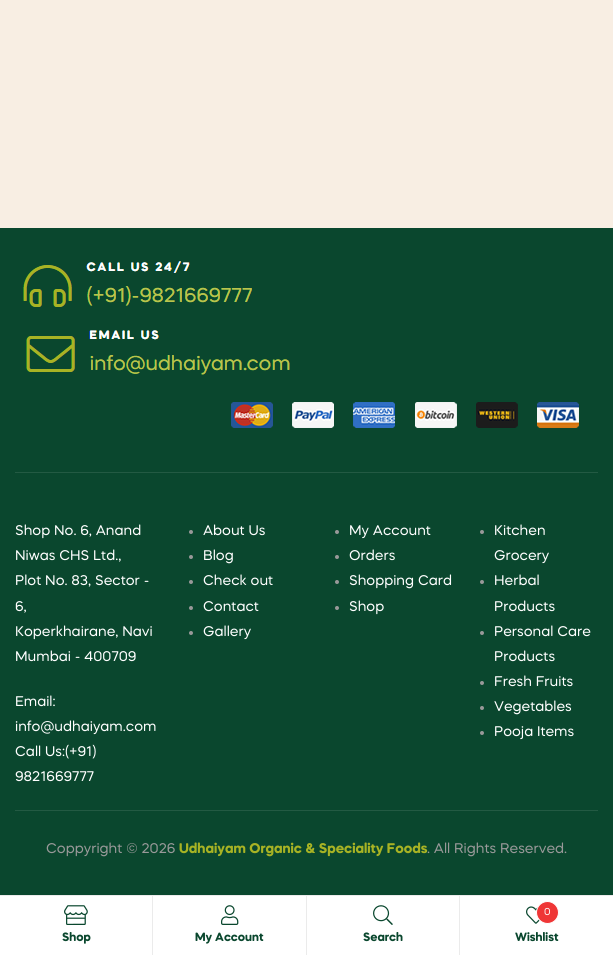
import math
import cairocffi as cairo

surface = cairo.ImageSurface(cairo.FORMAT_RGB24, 613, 955)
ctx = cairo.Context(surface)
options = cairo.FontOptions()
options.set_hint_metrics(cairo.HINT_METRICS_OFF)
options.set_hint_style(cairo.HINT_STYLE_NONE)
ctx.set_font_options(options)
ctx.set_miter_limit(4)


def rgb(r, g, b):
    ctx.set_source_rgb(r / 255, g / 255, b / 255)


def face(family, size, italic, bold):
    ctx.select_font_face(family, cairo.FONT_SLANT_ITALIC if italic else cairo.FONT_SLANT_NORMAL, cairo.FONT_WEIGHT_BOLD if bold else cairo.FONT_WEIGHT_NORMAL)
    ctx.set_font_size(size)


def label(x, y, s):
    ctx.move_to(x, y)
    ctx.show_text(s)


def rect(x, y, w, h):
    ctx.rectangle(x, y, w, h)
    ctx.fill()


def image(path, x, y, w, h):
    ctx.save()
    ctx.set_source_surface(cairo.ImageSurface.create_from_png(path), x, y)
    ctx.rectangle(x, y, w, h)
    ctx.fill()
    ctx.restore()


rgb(248, 238, 227)
ctx.paint()
rgb(10, 71, 46)
rect(0, 228, 613, 667)
image('image0.png', 23, 261, 229, 46)
image('image1.png', 26, 330, 264, 45)
image('image2.png', 231, 402, 348, 26)
rgb(35, 90, 67)
rect(15, 472, 583, 1)
rect(15, 810, 583, 1)
face('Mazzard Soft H', 14, 0, 0)
rgb(255, 255, 255)
label(15, 535, 'Shop No. 6, Anand')
label(15, 560, 'Niwas CHS Ltd.,')
label(15, 585, 'Plot No. 83, Sector -')
label(15, 611, '6,')
label(15, 636, 'Koperkhairane, Navi')
label(15, 661, 'Mumbai - 400709')
label(15, 706, 'Email:')
label(15, 731, 'info@udhaiyam.com')
label(15, 756, 'Call Us:(+91)')
label(15, 781, '9821669777')
rgb(153, 153, 153)
ctx.new_path()
ctx.arc(191, 532, 2, 0, 2 * math.pi)
ctx.fill()
rgb(255, 255, 255)
label(203, 535, 'About Us')
rgb(153, 153, 153)
ctx.new_path()
ctx.arc(191, 557, 2, 0, 2 * math.pi)
ctx.fill()
rgb(255, 255, 255)
label(203, 560, 'Blog')
rgb(153, 153, 153)
ctx.new_path()
ctx.arc(191, 582, 2, 0, 2 * math.pi)
ctx.fill()
rgb(255, 255, 255)
label(203, 585, 'Check out')
rgb(153, 153, 153)
ctx.new_path()
ctx.arc(191, 608, 2, 0, 2 * math.pi)
ctx.fill()
rgb(255, 255, 255)
label(203, 611, 'Contact')
rgb(153, 153, 153)
ctx.new_path()
ctx.arc(191, 633, 2, 0, 2 * math.pi)
ctx.fill()
rgb(255, 255, 255)
label(203, 636, 'Gallery')
rgb(153, 153, 153)
ctx.new_path()
ctx.arc(337, 532, 2, 0, 2 * math.pi)
ctx.fill()
rgb(255, 255, 255)
label(349, 535, 'My Account')
rgb(153, 153, 153)
ctx.new_path()
ctx.arc(337, 557, 2, 0, 2 * math.pi)
ctx.fill()
rgb(255, 255, 255)
label(349, 560, 'Orders')
rgb(153, 153, 153)
ctx.new_path()
ctx.arc(337, 582, 2, 0, 2 * math.pi)
ctx.fill()
rgb(255, 255, 255)
label(349, 585, 'Shopping Card')
rgb(153, 153, 153)
ctx.new_path()
ctx.arc(337, 608, 2, 0, 2 * math.pi)
ctx.fill()
rgb(255, 255, 255)
label(349, 611, 'Shop')
rgb(153, 153, 153)
ctx.new_path()
ctx.arc(482, 532, 2, 0, 2 * math.pi)
ctx.fill()
rgb(255, 255, 255)
label(494, 535, 'Kitchen')
label(494, 560, 'Grocery')
rgb(153, 153, 153)
ctx.new_path()
ctx.arc(482, 582, 2, 0, 2 * math.pi)
ctx.fill()
rgb(255, 255, 255)
label(494, 585, 'Herbal')
label(494, 611, 'Products')
rgb(153, 153, 153)
ctx.new_path()
ctx.arc(482, 633, 2, 0, 2 * math.pi)
ctx.fill()
rgb(255, 255, 255)
label(494, 636, 'Personal Care')
label(494, 661, 'Products')
rgb(153, 153, 153)
ctx.new_path()
ctx.arc(482, 683, 2, 0, 2 * math.pi)
ctx.fill()
rgb(255, 255, 255)
label(494, 686, 'Fresh Fruits')
rgb(153, 153, 153)
ctx.new_path()
ctx.arc(482, 708, 2, 0, 2 * math.pi)
ctx.fill()
rgb(255, 255, 255)
label(494, 711, 'Vegetables')
rgb(153, 153, 153)
ctx.new_path()
ctx.arc(482, 733, 2, 0, 2 * math.pi)
ctx.fill()
rgb(255, 255, 255)
label(494, 736, 'Pooja Items')
rgb(153, 153, 153)
label(46, 853, 'Coppyright © 2026')
face('Mazzard Soft H', 14, 0, 1)
rgb(168, 179, 36)
label(179, 853, 'Udhaiyam Organic & Speciality Foods')
face('Mazzard Soft H', 14, 0, 0)
rgb(153, 153, 153)
label(427, 853, '. All Rights Reserved.')
rgb(235, 235, 235)
rect(0, 895, 613, 1)
rgb(255, 255, 255)
rect(0, 896, 152, 59)
rgb(235, 235, 235)
rect(152, 896, 1, 59)
image('image3.png', 64, 905, 24, 20)
face('Mazzard Soft H', 12, 0, 1)
rgb(10, 71, 46)
label(62, 941, 'Shop')
rgb(255, 255, 255)
rect(153, 896, 153, 59)
rgb(235, 235, 235)
rect(306, 896, 1, 59)
image('image4.png', 221, 905, 18, 20)
rgb(10, 71, 46)
label(195, 941, 'My Account')
rgb(255, 255, 255)
rect(307, 896, 152, 59)
rgb(235, 235, 235)
rect(459, 896, 1, 59)
image('image5.png', 373, 905, 20, 20)
rgb(10, 71, 46)
label(363, 941, 'Search')
rgb(255, 255, 255)
rect(460, 896, 153, 59)
image('image6.png', 526, 906, 14, 18)
rgb(239, 54, 54)
ctx.arc(547.5, 912.5, 11, 0, 2 * math.pi)
ctx.fill_preserve()
rgb(255, 255, 255)
ctx.set_line_width(1)
ctx.stroke()
face('Mazzard Soft H', 10, 0, 0)
label(544, 915, '0')
face('Mazzard Soft H', 12, 0, 1)
rgb(10, 71, 46)
label(515, 941, 'Wishlist')
surface.write_to_png('render.png')
